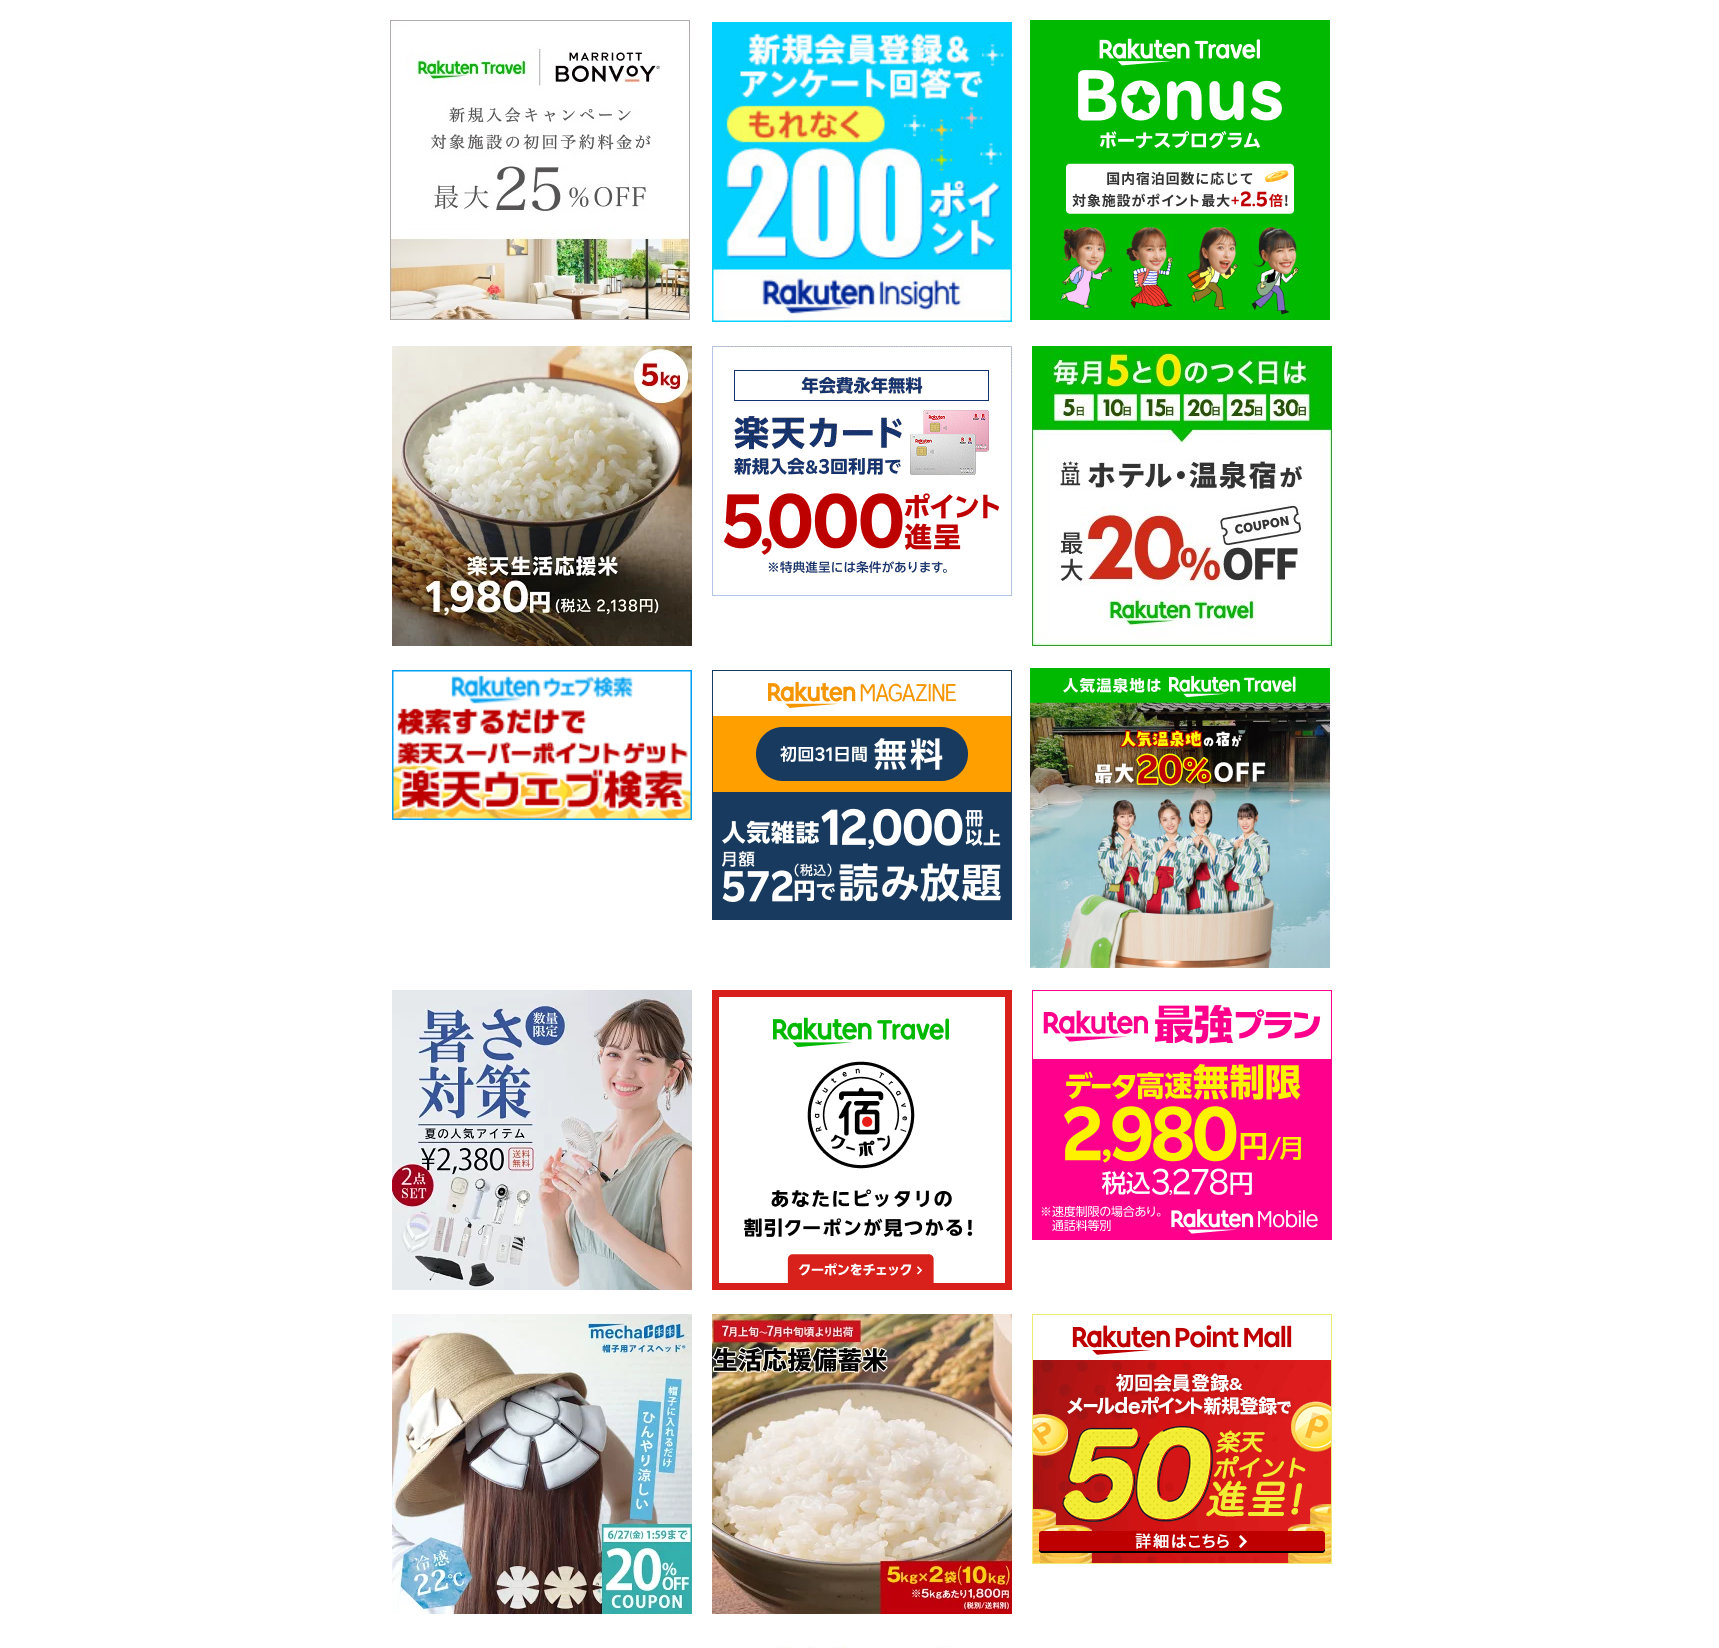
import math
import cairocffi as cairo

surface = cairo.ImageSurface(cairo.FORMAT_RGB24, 1719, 1648)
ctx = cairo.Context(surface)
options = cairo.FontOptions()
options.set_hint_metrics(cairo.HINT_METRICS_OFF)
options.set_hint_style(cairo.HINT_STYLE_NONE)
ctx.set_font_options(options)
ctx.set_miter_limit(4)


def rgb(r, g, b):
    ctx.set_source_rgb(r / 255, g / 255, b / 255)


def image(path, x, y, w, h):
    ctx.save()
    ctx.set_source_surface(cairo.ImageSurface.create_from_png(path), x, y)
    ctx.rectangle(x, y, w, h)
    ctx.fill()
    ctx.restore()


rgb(255, 255, 255)
ctx.paint()
image('image0.png', 390, 20, 300, 300)
image('image1.png', 712, 22, 300, 300)
image('image2.png', 1030, 20, 300, 300)
image('image3.png', 392, 346, 300, 300)
image('image4.png', 712, 346, 300, 250)
image('image5.png', 1032, 346, 300, 300)
image('image6.png', 392, 670, 300, 150)
image('image7.png', 712, 670, 300, 250)
image('image8.png', 1030, 668, 300, 300)
image('image9.png', 392, 990, 300, 300)
image('image10.png', 712, 990, 300, 300)
image('image11.png', 1032, 990, 300, 250)
image('image12.png', 392, 1314, 300, 300)
image('image13.png', 712, 1314, 300, 300)
image('image14.png', 1032, 1314, 300, 250)
image('image15.png', 776, 1646, 176, 2)
surface.write_to_png('render.png')
